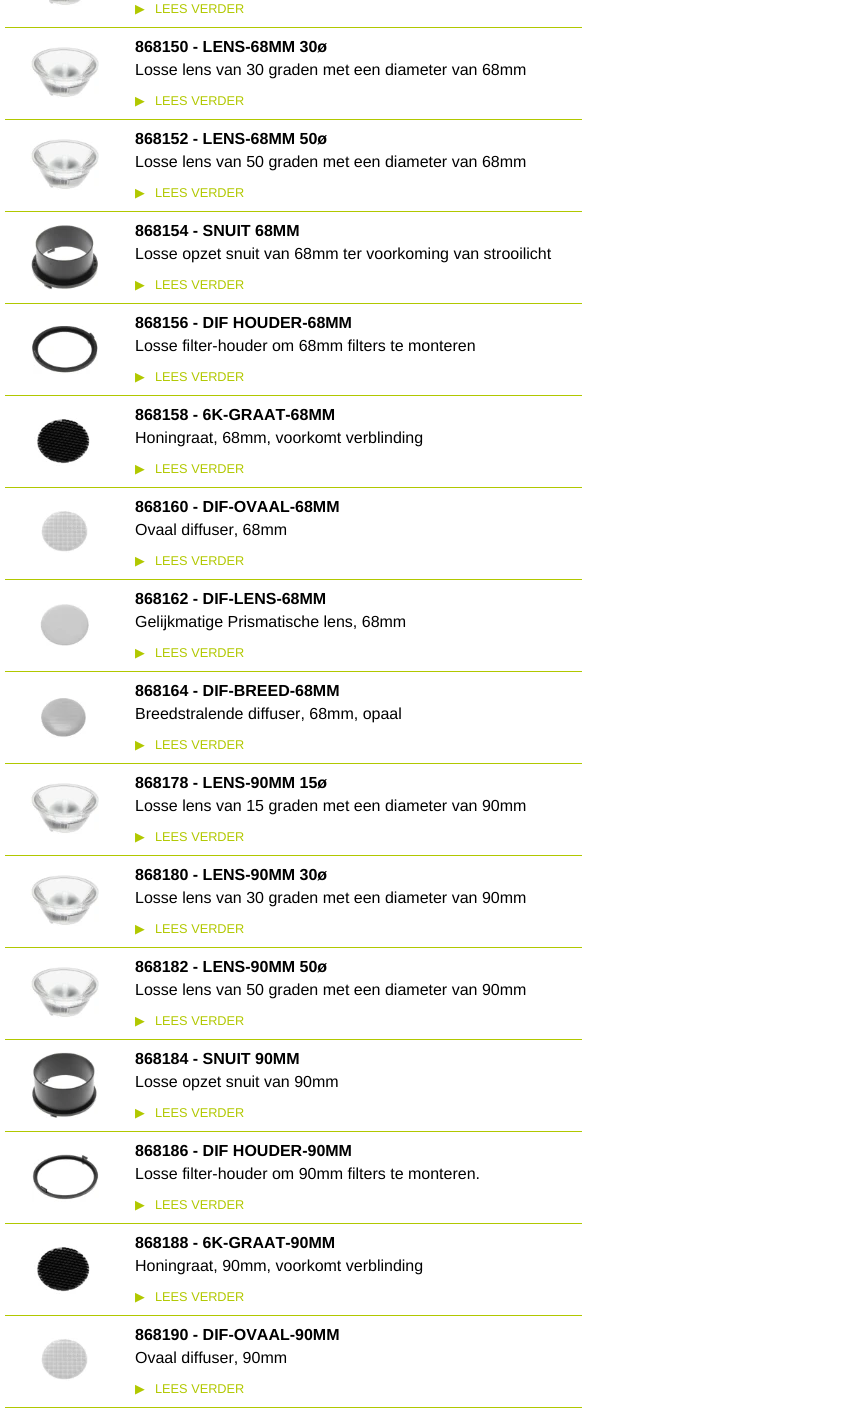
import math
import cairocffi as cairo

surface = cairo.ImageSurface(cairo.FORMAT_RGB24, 842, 1411)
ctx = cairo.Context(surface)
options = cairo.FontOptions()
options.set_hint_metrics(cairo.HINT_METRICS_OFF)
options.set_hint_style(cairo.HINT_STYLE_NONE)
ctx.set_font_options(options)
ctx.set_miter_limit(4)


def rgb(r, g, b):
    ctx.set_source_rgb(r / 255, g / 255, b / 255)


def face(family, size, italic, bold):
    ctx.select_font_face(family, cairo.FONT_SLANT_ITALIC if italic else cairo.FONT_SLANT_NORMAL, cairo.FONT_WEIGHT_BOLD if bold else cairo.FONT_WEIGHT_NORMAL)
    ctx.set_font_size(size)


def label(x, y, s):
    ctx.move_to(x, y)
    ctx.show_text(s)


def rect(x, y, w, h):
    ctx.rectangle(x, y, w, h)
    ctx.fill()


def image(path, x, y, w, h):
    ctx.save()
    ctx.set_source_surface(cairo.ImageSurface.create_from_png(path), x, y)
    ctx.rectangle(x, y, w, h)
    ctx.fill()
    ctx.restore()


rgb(255, 255, 255)
ctx.paint()
rgb(177, 200, 0)
rect(5, 27, 577, 1)
image('image0.png', 49, 0, 33, 6)
face('DejaVu Sans', 12.75, 0, 0)
label(135, 13, '▶')
face('Liberation Sans', 12.75, 0, 0)
label(155, 13, 'LEES VERDER')
face('Liberation Sans', 16, 0, 1)
rgb(0, 0, 0)
label(135, 52, '868150 - LENS-68MM 30ø')
face('Liberation Sans', 16, 0, 0)
label(135, 75, 'Losse lens van 30 graden met een diameter van 68mm')
face('DejaVu Sans', 12.75, 0, 0)
rgb(177, 200, 0)
label(135, 105, '▶')
face('Liberation Sans', 12.75, 0, 0)
label(155, 105, 'LEES VERDER')
rect(5, 119, 577, 1)
image('image1.png', 30, 47, 69, 51)
face('Liberation Sans', 16, 0, 1)
rgb(0, 0, 0)
label(135, 144, '868152 - LENS-68MM 50ø')
face('Liberation Sans', 16, 0, 0)
label(135, 167, 'Losse lens van 50 graden met een diameter van 68mm')
face('DejaVu Sans', 12.75, 0, 0)
rgb(177, 200, 0)
label(135, 197, '▶')
face('Liberation Sans', 12.75, 0, 0)
label(155, 197, 'LEES VERDER')
rect(5, 211, 577, 1)
image('image1.png', 30, 139, 69, 51)
face('Liberation Sans', 16, 0, 1)
rgb(0, 0, 0)
label(135, 236, '868154 - SNUIT 68MM')
face('Liberation Sans', 16, 0, 0)
label(135, 259, 'Losse opzet snuit van 68mm ter voorkoming van strooilicht')
face('DejaVu Sans', 12.75, 0, 0)
rgb(177, 200, 0)
label(135, 289, '▶')
face('Liberation Sans', 12.75, 0, 0)
label(155, 289, 'LEES VERDER')
rect(5, 303, 577, 1)
image('image2.png', 31, 225, 67, 65)
face('Liberation Sans', 16, 0, 1)
rgb(0, 0, 0)
label(135, 328, '868156 - DIF HOUDER-68MM')
face('Liberation Sans', 16, 0, 0)
label(135, 351, 'Losse filter-houder om 68mm filters te monteren')
face('DejaVu Sans', 12.75, 0, 0)
rgb(177, 200, 0)
label(135, 381, '▶')
face('Liberation Sans', 12.75, 0, 0)
label(155, 381, 'LEES VERDER')
rect(5, 395, 577, 1)
image('image3.png', 32, 326, 66, 48)
face('Liberation Sans', 16, 0, 1)
rgb(0, 0, 0)
label(135, 420, '868158 - 6K-GRAAT-68MM')
face('Liberation Sans', 16, 0, 0)
label(135, 443, 'Honingraat, 68mm, voorkomt verblinding')
face('DejaVu Sans', 12.75, 0, 0)
rgb(177, 200, 0)
label(135, 473, '▶')
face('Liberation Sans', 12.75, 0, 0)
label(155, 473, 'LEES VERDER')
rect(5, 487, 577, 1)
image('image4.png', 34, 418, 56, 48)
face('Liberation Sans', 16, 0, 1)
rgb(0, 0, 0)
label(135, 512, '868160 - DIF-OVAAL-68MM')
face('Liberation Sans', 16, 0, 0)
label(135, 535, 'Ovaal diffuser, 68mm')
face('DejaVu Sans', 12.75, 0, 0)
rgb(177, 200, 0)
label(135, 565, '▶')
face('Liberation Sans', 12.75, 0, 0)
label(155, 565, 'LEES VERDER')
rect(5, 579, 577, 1)
image('image5.png', 41, 510, 47, 43)
face('Liberation Sans', 16, 0, 1)
rgb(0, 0, 0)
label(135, 604, '868162 - DIF-LENS-68MM')
face('Liberation Sans', 16, 0, 0)
label(135, 627, 'Gelijkmatige Prismatische lens, 68mm')
face('DejaVu Sans', 12.75, 0, 0)
rgb(177, 200, 0)
label(135, 657, '▶')
face('Liberation Sans', 12.75, 0, 0)
label(155, 657, 'LEES VERDER')
rect(5, 671, 577, 1)
image('image6.png', 40, 604, 50, 42)
face('Liberation Sans', 16, 0, 1)
rgb(0, 0, 0)
label(135, 696, '868164 - DIF-BREED-68MM')
face('Liberation Sans', 16, 0, 0)
label(135, 719, 'Breedstralende diffuser, 68mm, opaal')
face('DejaVu Sans', 12.75, 0, 0)
rgb(177, 200, 0)
label(135, 749, '▶')
face('Liberation Sans', 12.75, 0, 0)
label(155, 749, 'LEES VERDER')
rect(5, 763, 577, 1)
image('image7.png', 41, 698, 45, 40)
face('Liberation Sans', 16, 0, 1)
rgb(0, 0, 0)
label(135, 788, '868178 - LENS-90MM 15ø')
face('Liberation Sans', 16, 0, 0)
label(135, 811, 'Losse lens van 15 graden met een diameter van 90mm')
face('DejaVu Sans', 12.75, 0, 0)
rgb(177, 200, 0)
label(135, 841, '▶')
face('Liberation Sans', 12.75, 0, 0)
label(155, 841, 'LEES VERDER')
rect(5, 855, 577, 1)
image('image1.png', 30, 783, 69, 51)
face('Liberation Sans', 16, 0, 1)
rgb(0, 0, 0)
label(135, 880, '868180 - LENS-90MM 30ø')
face('Liberation Sans', 16, 0, 0)
label(135, 903, 'Losse lens van 30 graden met een diameter van 90mm')
face('DejaVu Sans', 12.75, 0, 0)
rgb(177, 200, 0)
label(135, 933, '▶')
face('Liberation Sans', 12.75, 0, 0)
label(155, 933, 'LEES VERDER')
rect(5, 947, 577, 1)
image('image1.png', 30, 875, 69, 51)
face('Liberation Sans', 16, 0, 1)
rgb(0, 0, 0)
label(135, 972, '868182 - LENS-90MM 50ø')
face('Liberation Sans', 16, 0, 0)
label(135, 995, 'Losse lens van 50 graden met een diameter van 90mm')
face('DejaVu Sans', 12.75, 0, 0)
rgb(177, 200, 0)
label(135, 1025, '▶')
face('Liberation Sans', 12.75, 0, 0)
label(155, 1025, 'LEES VERDER')
rect(5, 1039, 577, 1)
image('image1.png', 30, 967, 69, 51)
rect(5, 1131, 577, 1)
image('image8.png', 30, 1052, 68, 66)
face('Liberation Sans', 16, 0, 1)
rgb(0, 0, 0)
label(135, 1064, '868184 - SNUIT 90MM')
face('Liberation Sans', 16, 0, 0)
label(135, 1087, 'Losse opzet snuit van 90mm')
face('DejaVu Sans', 12.75, 0, 0)
rgb(177, 200, 0)
label(135, 1117, '▶')
face('Liberation Sans', 12.75, 0, 0)
label(155, 1117, 'LEES VERDER')
face('Liberation Sans', 16, 0, 1)
rgb(0, 0, 0)
label(135, 1156, '868186 - DIF HOUDER-90MM')
face('Liberation Sans', 16, 0, 0)
label(135, 1179, 'Losse filter-houder om 90mm filters te monteren.')
face('DejaVu Sans', 12.75, 0, 0)
rgb(177, 200, 0)
label(135, 1209, '▶')
face('Liberation Sans', 12.75, 0, 0)
label(155, 1209, 'LEES VERDER')
rect(5, 1223, 577, 1)
image('image9.png', 32, 1154, 67, 48)
face('Liberation Sans', 16, 0, 1)
rgb(0, 0, 0)
label(135, 1248, '868188 - 6K-GRAAT-90MM')
face('Liberation Sans', 16, 0, 0)
label(135, 1271, 'Honingraat, 90mm, voorkomt verblinding')
face('DejaVu Sans', 12.75, 0, 0)
rgb(177, 200, 0)
label(135, 1301, '▶')
face('Liberation Sans', 12.75, 0, 0)
label(155, 1301, 'LEES VERDER')
rect(5, 1315, 577, 1)
image('image4.png', 34, 1246, 56, 48)
face('Liberation Sans', 16, 0, 1)
rgb(0, 0, 0)
label(135, 1340, '868190 - DIF-OVAAL-90MM')
face('Liberation Sans', 16, 0, 0)
label(135, 1363, 'Ovaal diffuser, 90mm')
face('DejaVu Sans', 12.75, 0, 0)
rgb(177, 200, 0)
label(135, 1393, '▶')
face('Liberation Sans', 12.75, 0, 0)
label(155, 1393, 'LEES VERDER')
rect(5, 1407, 577, 1)
image('image5.png', 41, 1338, 47, 43)
surface.write_to_png('render.png')
